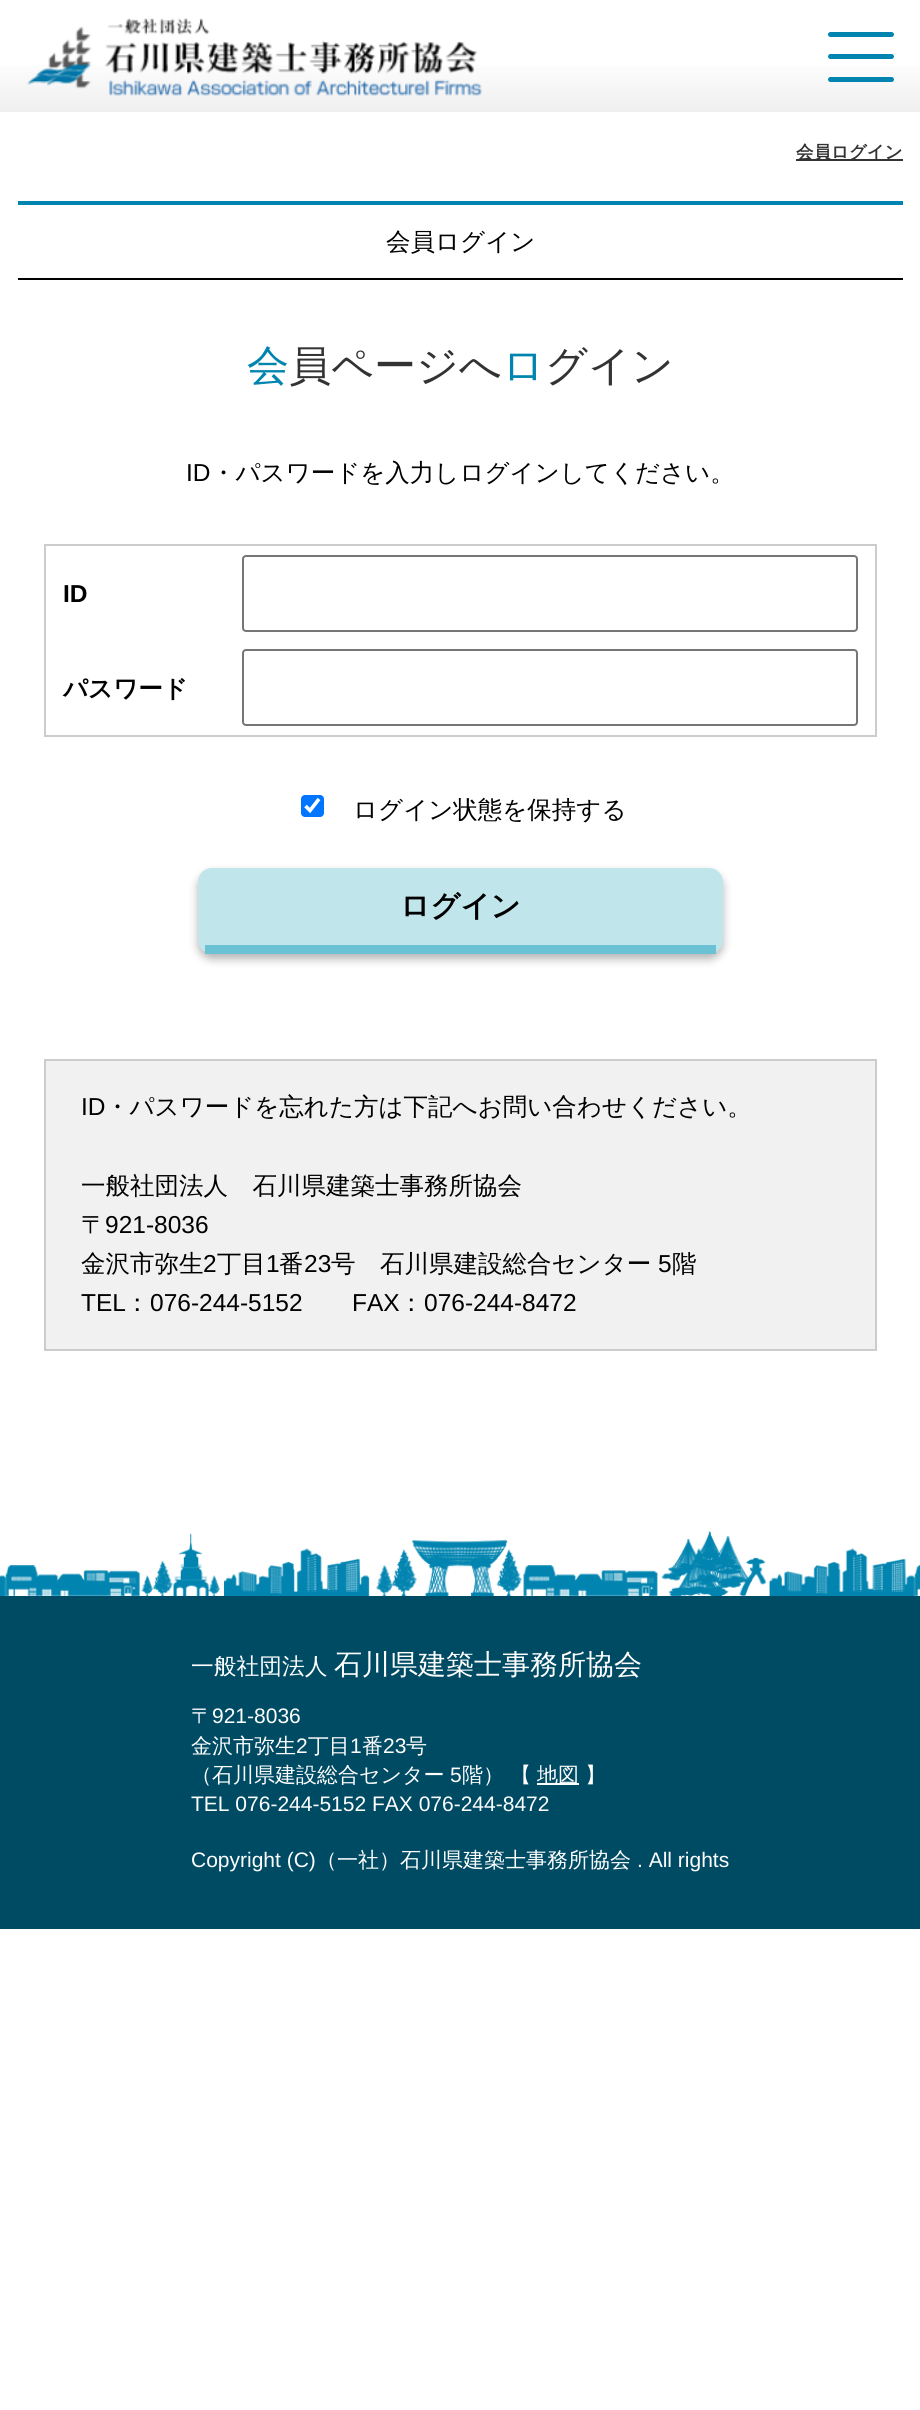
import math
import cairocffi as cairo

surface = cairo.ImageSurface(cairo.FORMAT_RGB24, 920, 2410)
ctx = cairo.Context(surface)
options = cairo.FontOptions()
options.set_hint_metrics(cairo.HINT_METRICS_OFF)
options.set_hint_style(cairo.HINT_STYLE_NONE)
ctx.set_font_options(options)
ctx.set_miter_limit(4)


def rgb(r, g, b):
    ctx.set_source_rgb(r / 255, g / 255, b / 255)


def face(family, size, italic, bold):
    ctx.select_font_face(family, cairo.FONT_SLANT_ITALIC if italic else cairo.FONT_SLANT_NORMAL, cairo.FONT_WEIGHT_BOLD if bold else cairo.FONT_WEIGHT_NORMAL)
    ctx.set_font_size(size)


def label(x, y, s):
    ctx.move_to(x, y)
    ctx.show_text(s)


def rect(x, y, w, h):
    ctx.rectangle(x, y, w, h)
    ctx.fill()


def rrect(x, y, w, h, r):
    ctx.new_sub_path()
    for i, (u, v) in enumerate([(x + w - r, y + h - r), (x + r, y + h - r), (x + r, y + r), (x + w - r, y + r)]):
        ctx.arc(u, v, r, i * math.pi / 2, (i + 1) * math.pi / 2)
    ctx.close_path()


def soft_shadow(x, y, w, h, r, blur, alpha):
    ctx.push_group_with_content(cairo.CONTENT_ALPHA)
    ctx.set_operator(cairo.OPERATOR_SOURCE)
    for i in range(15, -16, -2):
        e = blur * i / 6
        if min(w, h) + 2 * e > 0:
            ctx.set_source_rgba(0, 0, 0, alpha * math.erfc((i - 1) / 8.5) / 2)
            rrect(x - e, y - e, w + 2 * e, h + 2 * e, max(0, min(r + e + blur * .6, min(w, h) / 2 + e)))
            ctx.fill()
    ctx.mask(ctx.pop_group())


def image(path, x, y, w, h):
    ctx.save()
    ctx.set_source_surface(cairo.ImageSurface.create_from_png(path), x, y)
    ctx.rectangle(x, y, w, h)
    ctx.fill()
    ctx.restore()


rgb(255, 255, 255)
ctx.paint()
gradient = cairo.LinearGradient(460, 0, 460, 112)
gradient.add_color_stop_rgba(0.5, 1, 1, 1, 1)
gradient.add_color_stop_rgba(1, 0.937, 0.937, 0.937, 1)
ctx.set_source(gradient)
rect(0, 65, 920, 47)
image('image0.png', 27, 18, 455, 78)
rgb(1, 133, 176)
rrect(828, 32, 66, 5, 2.5)
ctx.fill()
rrect(828, 54, 66, 5, 2.5)
ctx.fill()
rrect(828, 77, 66, 5, 2.5)
ctx.fill()
rgb(51, 51, 51)
rect(796, 159, 107, 2)
face('WenQuanYi Zen Hei', 17.5, 0, 1)
label(796, 158, '会員ログイン')
rgb(1, 133, 176)
rect(18, 201, 885, 4)
rgb(0, 0, 0)
rect(18, 278, 885, 2)
face('WenQuanYi Zen Hei Medium', 24.5, 0, 0)
label(386, 250, '会員ログイン')
face('WenQuanYi Zen Hei Medium', 42, 0, 0)
rgb(0, 133, 176)
label(247, 380, '会')
rgb(51, 51, 51)
label(289, 380, '員ページへ')
rgb(0, 133, 176)
label(502, 380, 'ロ')
rgb(51, 51, 51)
label(545, 380, 'グイン')
face('Liberation Sans', 24.5, 0, 0)
rgb(0, 0, 0)
label(186, 481, 'ID')
face('WenQuanYi Zen Hei Medium', 24.5, 0, 0)
label(211, 481, '・パスワードを入力しログインしてください。')
rgb(204, 204, 204)
rect(44, 544, 833, 2)
rect(875, 544, 2, 193)
rect(44, 735, 833, 2)
rect(44, 544, 2, 193)
face('Liberation Sans', 24.5, 0, 1)
rgb(0, 0, 0)
label(63, 602, 'ID')
rrect(243, 556, 614, 75, 3)
rgb(118, 118, 118)
ctx.stroke()
face('WenQuanYi Zen Hei', 24.5, 0, 1)
rgb(0, 0, 0)
label(63, 697, 'パスワード')
rrect(243, 650, 614, 75, 3)
rgb(118, 118, 118)
ctx.stroke()
rgb(0, 117, 255)
rrect(301, 795, 23, 22, 4)
ctx.fill()
ctx.new_path()
ctx.move_to(305.5, 806)
ctx.line_to(310, 810.5)
ctx.line_to(319, 799)
rgb(255, 255, 255)
ctx.set_line_width(3.6)
ctx.stroke()
face('WenQuanYi Zen Hei Medium', 24.5, 0, 0)
rgb(0, 0, 0)
label(353, 818, 'ログイン状態を保持する')
rgb(0, 0, 0)
soft_shadow(198, 873, 525, 86, 14, 4.5, 0.3)
rgb(192, 230, 235)
rrect(198, 868, 525, 86, 14)
ctx.fill()
rgb(108, 194, 213)
rect(205, 945, 511, 9)
face('WenQuanYi Zen Hei', 29.5, 0, 1)
rgb(0, 0, 0)
label(400, 916, 'ログイン')
rgb(241, 241, 241)
ctx.rectangle(45, 1060, 831, 290)
ctx.fill_preserve()
rgb(204, 204, 204)
ctx.set_line_width(2)
ctx.stroke()
face('Liberation Sans', 24.5, 0, 0)
rgb(0, 0, 0)
label(81, 1115, 'ID')
face('WenQuanYi Zen Hei Medium', 24.5, 0, 0)
label(105, 1115, '・パスワードを忘れた方は下記へお問い合わせください。')
label(81, 1194, '一般社団法人　石川県建築士事務所協会')
label(81, 1233, '〒')
face('Liberation Sans', 24.5, 0, 0)
label(105, 1233, '921-8036')
face('WenQuanYi Zen Hei Medium', 24.5, 0, 0)
label(81, 1272, '金沢市弥生')
face('Liberation Sans', 24.5, 0, 0)
label(203, 1272, '2')
face('WenQuanYi Zen Hei Medium', 24.5, 0, 0)
label(217, 1272, '丁目')
face('Liberation Sans', 24.5, 0, 0)
label(266, 1272, '1')
face('WenQuanYi Zen Hei Medium', 24.5, 0, 0)
label(279, 1272, '番')
face('Liberation Sans', 24.5, 0, 0)
label(304, 1272, '23')
face('WenQuanYi Zen Hei Medium', 24.5, 0, 0)
label(331, 1272, '号　石川県建設総合センター')
face('Liberation Sans', 24.5, 0, 0)
label(658, 1272, '5')
face('WenQuanYi Zen Hei Medium', 24.5, 0, 0)
label(672, 1272, '階')
face('Liberation Sans', 24.5, 0, 0)
label(81, 1311, 'TEL')
face('WenQuanYi Zen Hei Medium', 24.5, 0, 0)
label(125, 1311, '：')
face('Liberation Sans', 24.5, 0, 0)
label(150, 1311, '076-244-5152')
label(352, 1311, 'FAX')
face('WenQuanYi Zen Hei Medium', 24.5, 0, 0)
label(399, 1311, '：')
face('Liberation Sans', 24.5, 0, 0)
label(424, 1311, '076-244-8472')
rgb(0, 75, 100)
rect(0, 1596, 920, 333)
image('image1.png', 0, 1526, 920, 70)
face('WenQuanYi Zen Hei Medium', 22.75, 0, 0)
rgb(255, 255, 255)
label(191, 1674, '一般社団法人')
face('WenQuanYi Zen Hei Medium', 28, 0, 0)
label(334, 1674, '石川県建築士事務所協会')
face('WenQuanYi Zen Hei Medium', 21, 0, 0)
label(191, 1723, '〒')
face('Liberation Sans', 21, 0, 0)
label(212, 1723, '921-8036')
face('WenQuanYi Zen Hei Medium', 21, 0, 0)
label(191, 1753, '金沢市弥生')
face('Liberation Sans', 21, 0, 0)
label(296, 1753, '2')
face('WenQuanYi Zen Hei Medium', 21, 0, 0)
label(308, 1753, '丁目')
face('Liberation Sans', 21, 0, 0)
label(350, 1753, '1')
face('WenQuanYi Zen Hei Medium', 21, 0, 0)
label(362, 1753, '番')
face('Liberation Sans', 21, 0, 0)
label(383, 1753, '23')
face('WenQuanYi Zen Hei Medium', 21, 0, 0)
label(406, 1753, '号')
label(191, 1782, '（石川県建設総合センター')
face('Liberation Sans', 21, 0, 0)
label(450, 1782, '5')
face('WenQuanYi Zen Hei Medium', 21, 0, 0)
label(462, 1782, '階） 【')
rect(537, 1783, 42, 2)
label(537, 1782, '地図')
label(585, 1782, '】')
face('Liberation Sans', 21, 0, 0)
label(191, 1811, 'TEL 076-244-5152 FAX 076-244-8472')
label(191, 1867, 'Copyright (C)')
face('WenQuanYi Zen Hei Medium', 21, 0, 0)
label(316, 1867, '（一社）石川県建築士事務所協会')
face('Liberation Sans', 21, 0, 0)
label(637, 1867, '. All rights')
surface.write_to_png('render.png')
